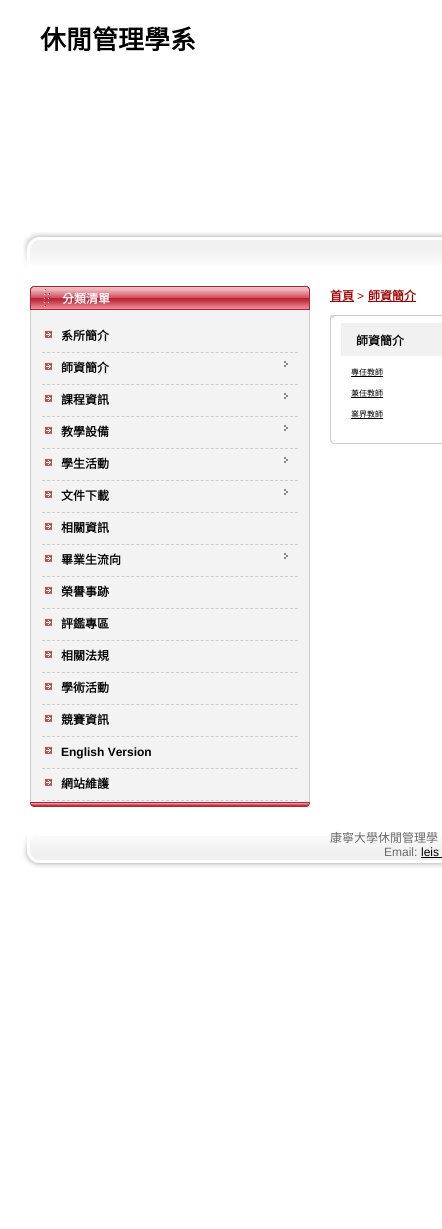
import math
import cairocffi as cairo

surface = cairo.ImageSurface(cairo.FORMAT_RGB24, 442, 1229)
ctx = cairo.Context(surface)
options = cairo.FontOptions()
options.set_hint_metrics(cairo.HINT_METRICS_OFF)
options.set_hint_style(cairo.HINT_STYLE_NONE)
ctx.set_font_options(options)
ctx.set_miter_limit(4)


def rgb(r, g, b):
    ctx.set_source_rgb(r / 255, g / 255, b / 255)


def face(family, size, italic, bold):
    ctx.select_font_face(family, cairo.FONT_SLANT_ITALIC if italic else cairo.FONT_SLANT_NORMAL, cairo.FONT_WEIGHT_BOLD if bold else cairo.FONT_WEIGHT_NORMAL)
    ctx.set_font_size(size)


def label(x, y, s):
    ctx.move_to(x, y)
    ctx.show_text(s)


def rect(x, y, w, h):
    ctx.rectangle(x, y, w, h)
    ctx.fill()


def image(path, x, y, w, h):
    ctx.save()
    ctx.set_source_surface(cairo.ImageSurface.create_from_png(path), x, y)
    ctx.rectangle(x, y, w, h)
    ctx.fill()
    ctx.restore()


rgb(255, 255, 255)
ctx.paint()
face('Noto Sans CJK TC', 26, 0, 1)
rgb(0, 0, 0)
label(40, 49, '休閒管理學系')
image('image0.png', 23, 232, 419, 34)
image('image1.png', 37, 237, 2, 4)
image('image2.png', 50, 286, 257, 24)
image('image3.png', 30, 286, 20, 24)
image('image4.png', 307, 286, 3, 24)
face('Noto Sans CJK TC', 12, 0, 1)
rgb(255, 255, 255)
label(62, 303, '分類清單')
rgb(204, 204, 204)
rect(309, 310, 1, 492)
rect(30, 310, 1, 492)
rgb(243, 243, 243)
rect(31, 310, 278, 492)
image('image5.png', 45, 331, 7, 7)
ctx.new_path()
ctx.move_to(42, 352.5)
ctx.line_to(298, 352.5)
rgb(205, 205, 205)
ctx.set_line_width(1)
ctx.set_dash([3, 1.96])
ctx.stroke()
rgb(0, 0, 0)
label(61, 340, '系所簡介')
image('image5.png', 45, 363, 7, 7)
ctx.new_path()
ctx.move_to(42, 384.5)
ctx.line_to(298, 384.5)
rgb(205, 205, 205)
ctx.stroke()
rgb(0, 0, 0)
label(61, 372, '師資簡介')
image('image6.png', 284, 361, 4, 6)
image('image5.png', 45, 395, 7, 7)
ctx.new_path()
ctx.move_to(42, 416.5)
ctx.line_to(298, 416.5)
rgb(205, 205, 205)
ctx.stroke()
rgb(0, 0, 0)
label(61, 404, '課程資訊')
image('image6.png', 284, 393, 4, 6)
image('image5.png', 45, 427, 7, 7)
ctx.new_path()
ctx.move_to(42, 448.5)
ctx.line_to(298, 448.5)
rgb(205, 205, 205)
ctx.stroke()
rgb(0, 0, 0)
label(61, 436, '教學設備')
image('image6.png', 284, 425, 4, 6)
image('image5.png', 45, 459, 7, 7)
ctx.new_path()
ctx.move_to(42, 480.5)
ctx.line_to(298, 480.5)
rgb(205, 205, 205)
ctx.stroke()
rgb(0, 0, 0)
label(61, 468, '學生活動')
image('image6.png', 284, 457, 4, 6)
image('image5.png', 45, 491, 7, 7)
ctx.new_path()
ctx.move_to(42, 512.5)
ctx.line_to(298, 512.5)
rgb(205, 205, 205)
ctx.stroke()
rgb(0, 0, 0)
label(61, 500, '文件下載')
image('image6.png', 284, 489, 4, 6)
image('image5.png', 45, 523, 7, 7)
ctx.new_path()
ctx.move_to(42, 544.5)
ctx.line_to(298, 544.5)
rgb(205, 205, 205)
ctx.stroke()
rgb(0, 0, 0)
label(61, 532, '相關資訊')
image('image5.png', 45, 555, 7, 7)
ctx.new_path()
ctx.move_to(42, 576.5)
ctx.line_to(298, 576.5)
rgb(205, 205, 205)
ctx.stroke()
rgb(0, 0, 0)
label(61, 564, '畢業生流向')
image('image6.png', 284, 553, 4, 6)
image('image5.png', 45, 587, 7, 7)
ctx.new_path()
ctx.move_to(42, 608.5)
ctx.line_to(298, 608.5)
rgb(205, 205, 205)
ctx.stroke()
rgb(0, 0, 0)
label(61, 596, '榮譽事跡')
image('image5.png', 45, 619, 7, 7)
ctx.new_path()
ctx.move_to(42, 640.5)
ctx.line_to(298, 640.5)
rgb(205, 205, 205)
ctx.stroke()
rgb(0, 0, 0)
label(61, 628, '評鑑專區')
image('image5.png', 45, 651, 7, 7)
ctx.new_path()
ctx.move_to(42, 672.5)
ctx.line_to(298, 672.5)
rgb(205, 205, 205)
ctx.stroke()
rgb(0, 0, 0)
label(61, 660, '相關法規')
image('image5.png', 45, 683, 7, 7)
ctx.new_path()
ctx.move_to(42, 704.5)
ctx.line_to(298, 704.5)
rgb(205, 205, 205)
ctx.stroke()
rgb(0, 0, 0)
label(61, 692, '學術活動')
image('image5.png', 45, 715, 7, 7)
ctx.new_path()
ctx.move_to(42, 736.5)
ctx.line_to(298, 736.5)
rgb(205, 205, 205)
ctx.stroke()
rgb(0, 0, 0)
label(61, 724, '競賽資訊')
image('image5.png', 45, 747, 7, 7)
ctx.new_path()
ctx.move_to(42, 768.5)
ctx.line_to(298, 768.5)
rgb(205, 205, 205)
ctx.stroke()
face('Liberation Sans', 12, 0, 1)
rgb(0, 0, 0)
label(61, 756, 'English Version')
image('image5.png', 45, 779, 7, 7)
ctx.new_path()
ctx.move_to(42, 800.5)
ctx.line_to(298, 800.5)
rgb(205, 205, 205)
ctx.stroke()
face('Noto Sans CJK TC', 12, 0, 1)
rgb(0, 0, 0)
label(61, 788, '網站維護')
image('image7.png', 30, 802, 280, 5)
image('image8.png', 30, 803, 3, 4)
image('image9.png', 307, 803, 3, 4)
rgb(159, 0, 0)
label(330, 300, '首頁')
rect(330, 301, 24, 1)
face('Liberation Sans', 12, 0, 0)
label(357, 300, '>')
face('Noto Sans CJK TC', 12, 0, 1)
label(368, 300, '師資簡介')
rect(368, 301, 48, 1)
rgb(204, 204, 204)
rect(330, 315, 112, 1)
rgb(219, 219, 219)
rect(330, 315, 4, 3)
rgb(204, 204, 204)
rect(330, 318, 1, 116)
rgb(241, 241, 241)
rect(341, 323, 101, 33)
rgb(0, 0, 0)
label(356, 345, '師資簡介')
face('Noto Sans CJK TC', 8, 0, 0)
label(351, 375, '專任教師')
rect(351, 376, 32, 1)
label(351, 396, '兼任教師')
rect(351, 397, 32, 1)
label(351, 417, '業界教師')
rect(351, 418, 32, 1)
rgb(204, 204, 204)
rect(330, 443, 112, 1)
image('image10.png', 330, 434, 4, 10)
image('image11.png', 39, 836, 403, 32)
image('image12.png', 20, 834, 19, 34)
face('Noto Sans CJK TC', 12, 0, 0)
rgb(106, 106, 106)
label(330, 842, '康寧大學休閒管理學')
face('Liberation Sans', 12, 0, 0)
label(384, 856, 'Email:')
rgb(0, 0, 0)
label(421, 856, 'leis')
rect(421, 857, 21, 1)
surface.write_to_png('render.png')
